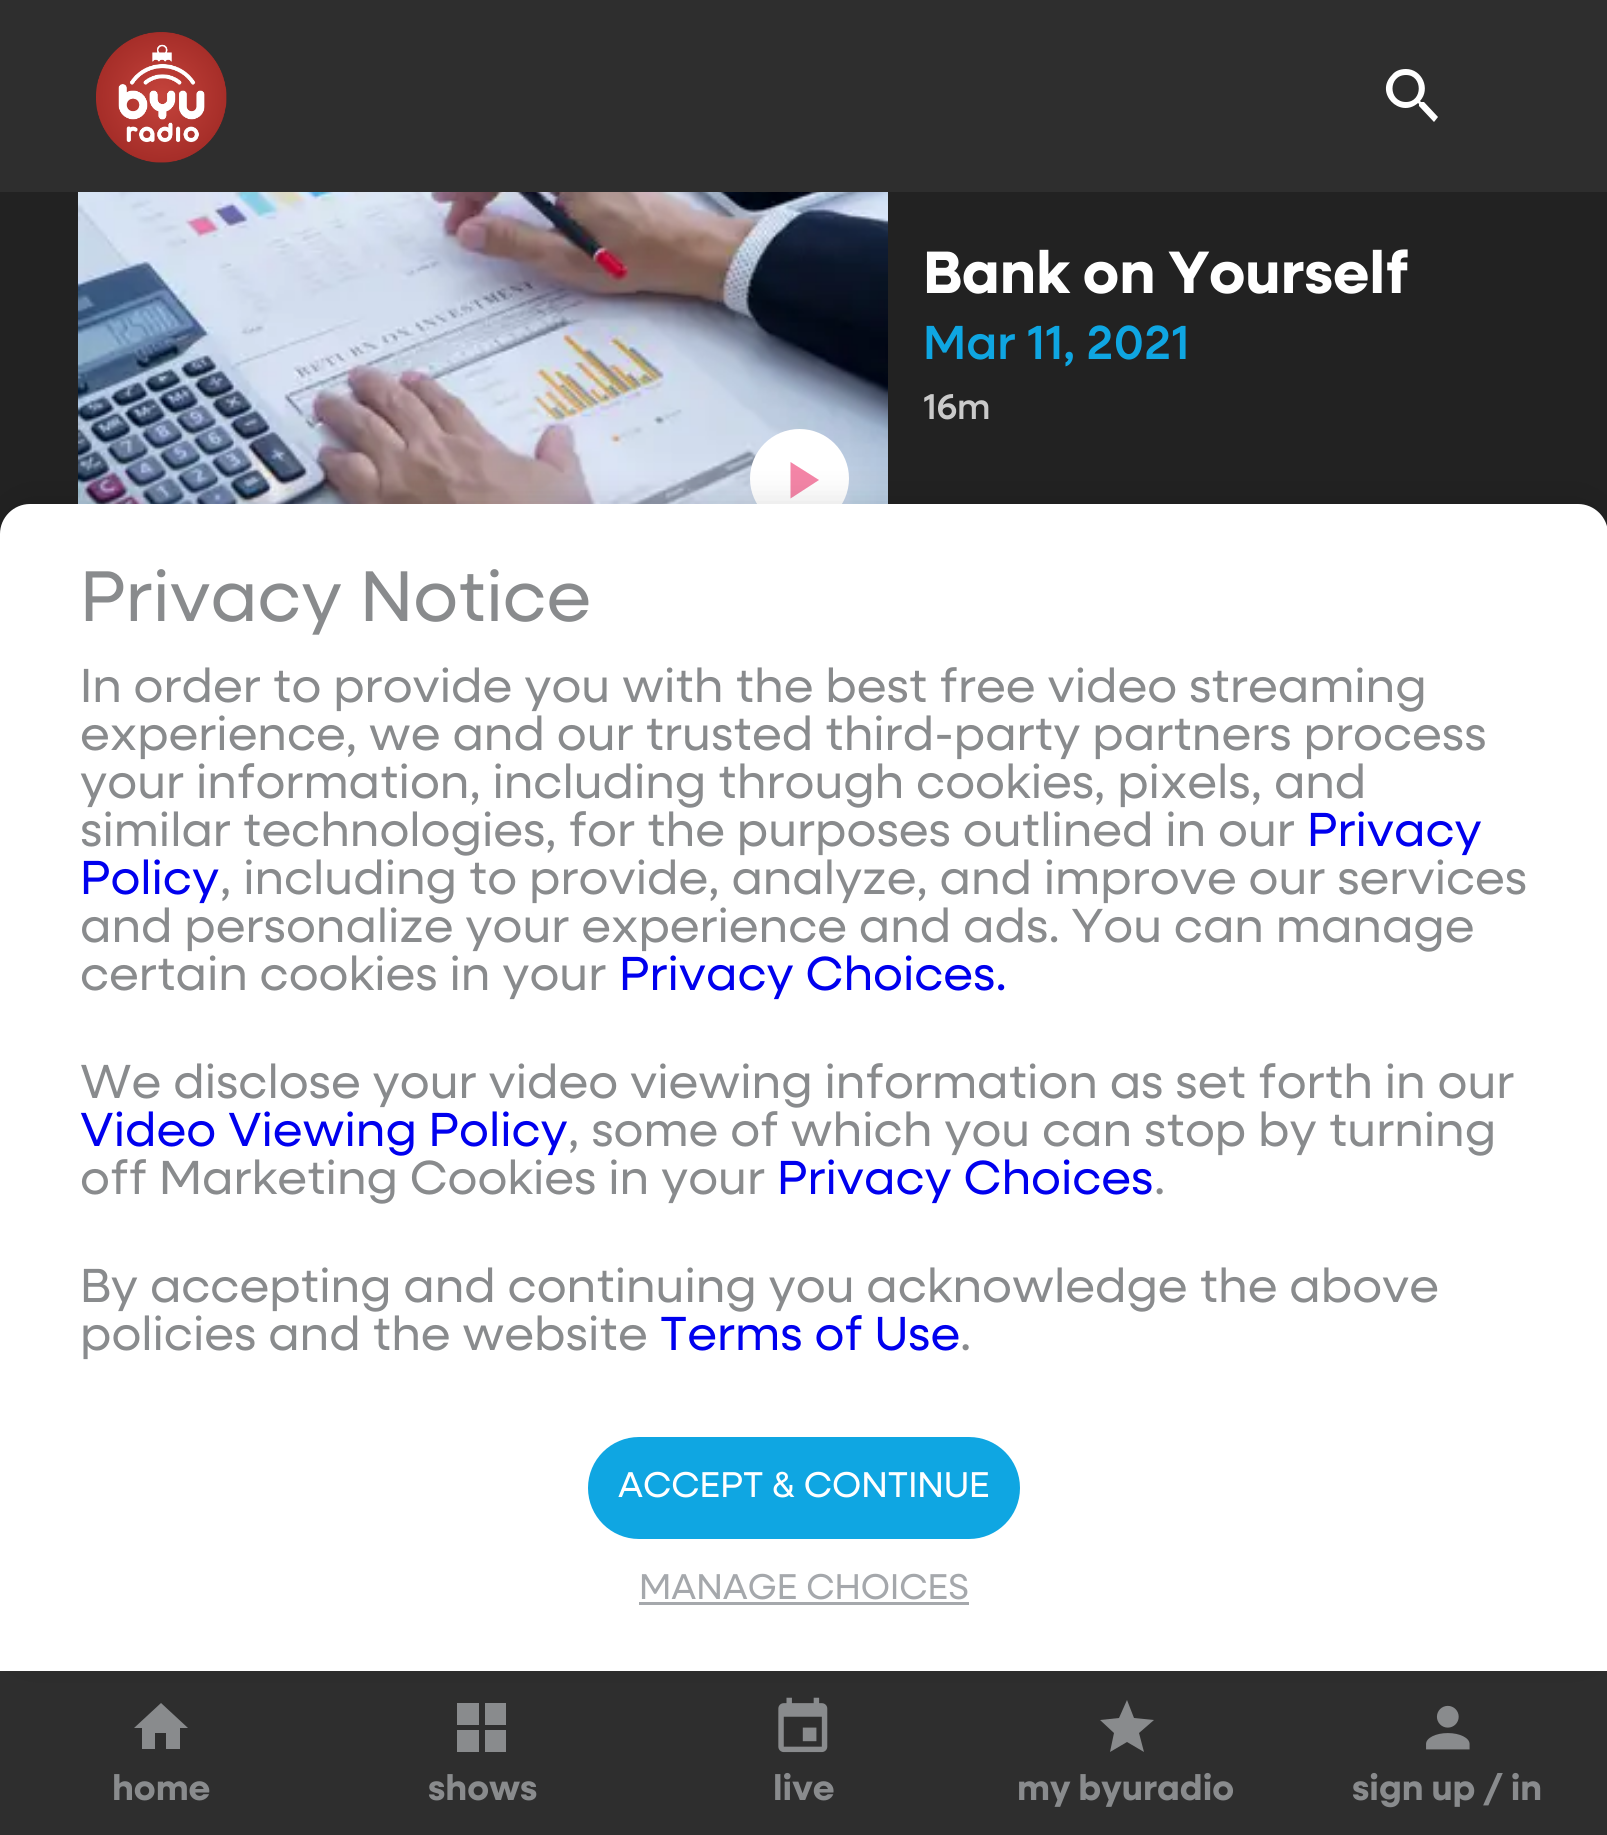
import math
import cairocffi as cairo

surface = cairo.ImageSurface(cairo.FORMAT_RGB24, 1607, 1835)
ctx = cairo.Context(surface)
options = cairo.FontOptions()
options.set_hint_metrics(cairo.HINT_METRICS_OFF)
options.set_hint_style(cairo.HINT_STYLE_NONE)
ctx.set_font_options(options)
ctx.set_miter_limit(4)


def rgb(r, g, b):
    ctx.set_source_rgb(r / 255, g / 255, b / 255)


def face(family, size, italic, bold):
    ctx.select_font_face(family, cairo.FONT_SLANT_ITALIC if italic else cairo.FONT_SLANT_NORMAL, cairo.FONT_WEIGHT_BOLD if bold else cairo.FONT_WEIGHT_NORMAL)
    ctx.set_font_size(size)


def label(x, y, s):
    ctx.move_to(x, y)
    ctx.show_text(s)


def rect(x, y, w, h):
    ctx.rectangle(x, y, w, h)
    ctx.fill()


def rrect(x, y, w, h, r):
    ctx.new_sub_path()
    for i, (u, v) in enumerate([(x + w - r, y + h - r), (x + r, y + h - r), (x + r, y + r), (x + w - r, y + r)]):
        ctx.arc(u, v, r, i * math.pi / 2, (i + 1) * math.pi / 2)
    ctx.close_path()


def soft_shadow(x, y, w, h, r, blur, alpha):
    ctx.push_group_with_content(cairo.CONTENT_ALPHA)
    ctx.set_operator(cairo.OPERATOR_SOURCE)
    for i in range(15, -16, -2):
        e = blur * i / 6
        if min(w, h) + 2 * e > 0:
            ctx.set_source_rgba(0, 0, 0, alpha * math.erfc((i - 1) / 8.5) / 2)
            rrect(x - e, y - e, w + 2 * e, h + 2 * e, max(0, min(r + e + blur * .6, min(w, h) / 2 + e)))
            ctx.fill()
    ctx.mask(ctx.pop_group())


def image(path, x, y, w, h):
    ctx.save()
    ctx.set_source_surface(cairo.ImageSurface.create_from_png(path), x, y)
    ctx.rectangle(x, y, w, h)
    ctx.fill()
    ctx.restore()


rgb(34, 34, 34)
ctx.paint()
rgb(46, 46, 46)
rect(0, 0, 1607, 192)
image('image0.png', 96, 32, 131, 131)
rgb(255, 255, 255)
ctx.new_path()
ctx.move_to(1406, 69)
ctx.curve_to(1422, 69, 1431, 89, 1420, 101)
ctx.line_to(1421, 102)
ctx.line_to(1424, 102)
ctx.line_to(1438, 117)
ctx.line_to(1434, 122)
ctx.line_to(1419, 106)
ctx.line_to(1419, 104)
ctx.line_to(1418, 103)
ctx.curve_to(1400, 119, 1374, 93, 1392, 75)
ctx.curve_to(1395, 71, 1400, 69, 1406, 69)
ctx.move_to(1406, 75)
ctx.curve_to(1388, 75, 1388, 102, 1406, 102)
ctx.curve_to(1423, 102, 1423, 75, 1406, 75)
ctx.close_path()
ctx.fill()
image('image1.png', 78, 192, 810, 312)
ctx.arc(799.5, 478.5, 47, 0, 2 * math.pi)
ctx.fill_preserve()
ctx.set_line_width(5)
ctx.stroke()
rgb(244, 133, 167)
ctx.new_path()
ctx.move_to(790.5, 462)
ctx.line_to(790.5, 498.5)
ctx.line_to(819, 480)
ctx.close_path()
ctx.fill()
face('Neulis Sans', 60, 0, 1)
rgb(255, 255, 255)
label(923, 293, 'Bank on Yourself')
face('Neulis Sans Medium', 48, 0, 0)
rgb(15, 166, 226)
label(923, 359, 'Mar 11, 2021')
ctx.save()
ctx.rectangle(924, 384, 66, 54)
ctx.clip()
face('Neulis Sans Medium', 36, 0, 0)
rgb(202, 202, 202)
label(923, 419, '16m')
ctx.restore()
rgb(46, 46, 46)
rect(0, 1671, 1607, 164)
rgb(137, 139, 141)
ctx.new_path()
ctx.move_to(155, 1749)
ctx.line_to(155, 1733)
ctx.line_to(166, 1733)
ctx.line_to(166, 1749)
ctx.line_to(180, 1749)
ctx.line_to(180, 1728)
ctx.line_to(188, 1728)
ctx.line_to(161, 1703)
ctx.line_to(134, 1728)
ctx.line_to(142, 1728)
ctx.line_to(142, 1749)
ctx.close_path()
ctx.fill()
ctx.new_path()
ctx.move_to(457, 1725)
ctx.line_to(479, 1725)
ctx.line_to(479, 1703)
ctx.line_to(457, 1703)
ctx.move_to(457, 1752)
ctx.line_to(479, 1752)
ctx.line_to(479, 1730)
ctx.line_to(457, 1730)
ctx.move_to(485, 1752)
ctx.line_to(506, 1752)
ctx.line_to(506, 1730)
ctx.line_to(485, 1730)
ctx.move_to(485, 1703)
ctx.line_to(485, 1725)
ctx.line_to(506, 1725)
ctx.line_to(506, 1703)
ctx.fill()
image('image2.png', 778, 1697, 50, 56)
ctx.new_path()
ctx.move_to(1127, 1742)
ctx.line_to(1144, 1752)
ctx.line_to(1139, 1733)
ctx.line_to(1154, 1720)
ctx.line_to(1134, 1718)
ctx.line_to(1127, 1700)
ctx.line_to(1119, 1718)
ctx.line_to(1100, 1720)
ctx.line_to(1114, 1733)
ctx.line_to(1110, 1752)
ctx.close_path()
ctx.fill()
image('image3.png', 1426, 1705, 44, 45)
rgb(0, 0, 0)
soft_shadow(0, 498, 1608, 1167, 30, 15, 0.1)
rgb(255, 255, 255)
ctx.new_path()
ctx.move_to(30, 504)
ctx.line_to(1578, 504)
ctx.curve_to(1594.5, 504, 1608, 517.5, 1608, 534)
ctx.line_to(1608, 1671)
ctx.line_to(0, 1671)
ctx.line_to(0, 534)
ctx.curve_to(0, 517.5, 13.5, 504, 30, 504)
ctx.close_path()
ctx.fill()
face('Neulis Sans', 72, 0, 0)
rgb(137, 139, 141)
label(80, 621, 'Privacy Notice')
face('Neulis Sans', 48, 0, 0)
label(80, 702, 'In order to provide you with the best free video streaming')
label(80, 750, 'experience, we and our trusted third-party partners process')
label(80, 798, 'your information, including through cookies, pixels, and')
label(80, 846, 'similar technologies, for the purposes outlined in our')
rgb(0, 0, 238)
label(1307, 846, 'Privacy')
label(80, 894, 'Policy')
rgb(137, 139, 141)
label(220, 894, ', including to provide, analyze, and improve our services')
label(80, 942, 'and personalize your experience and ads. You can manage')
label(80, 990, 'certain cookies in your')
rgb(0, 0, 238)
label(619, 990, 'Privacy Choices.')
rgb(137, 139, 141)
label(80, 1098, 'We disclose your video viewing information as set forth in our')
rgb(0, 0, 238)
label(80, 1146, 'Video Viewing Policy')
rgb(137, 139, 141)
label(568, 1146, ', some of which you can stop by turning')
label(80, 1194, 'off Marketing Cookies in your')
rgb(0, 0, 238)
label(777, 1194, 'Privacy Choices')
rgb(137, 139, 141)
label(1154, 1194, '.')
label(80, 1302, 'By accepting and continuing you acknowledge the above')
label(80, 1350, 'policies and the website')
rgb(0, 0, 238)
label(660, 1350, 'Terms of Use')
rgb(137, 139, 141)
label(960, 1350, '.')
rgb(15, 166, 226)
rrect(588, 1437, 432, 102, 51)
ctx.fill()
face('Neulis Sans', 36, 0, 0)
rgb(255, 255, 255)
label(618, 1497, 'ACCEPT & CONTINUE')
rgb(165, 168, 172)
label(639, 1599, 'MANAGE CHOICES')
rect(639, 1602, 330, 3)
face('Neulis Sans', 36, 0, 1)
rgb(137, 139, 141)
label(112, 1800, 'home')
label(428, 1800, 'shows')
label(773, 1800, 'live')
label(1017, 1800, 'my byuradio')
label(1352, 1800, 'sign up / in')
surface.write_to_png('render.png')
